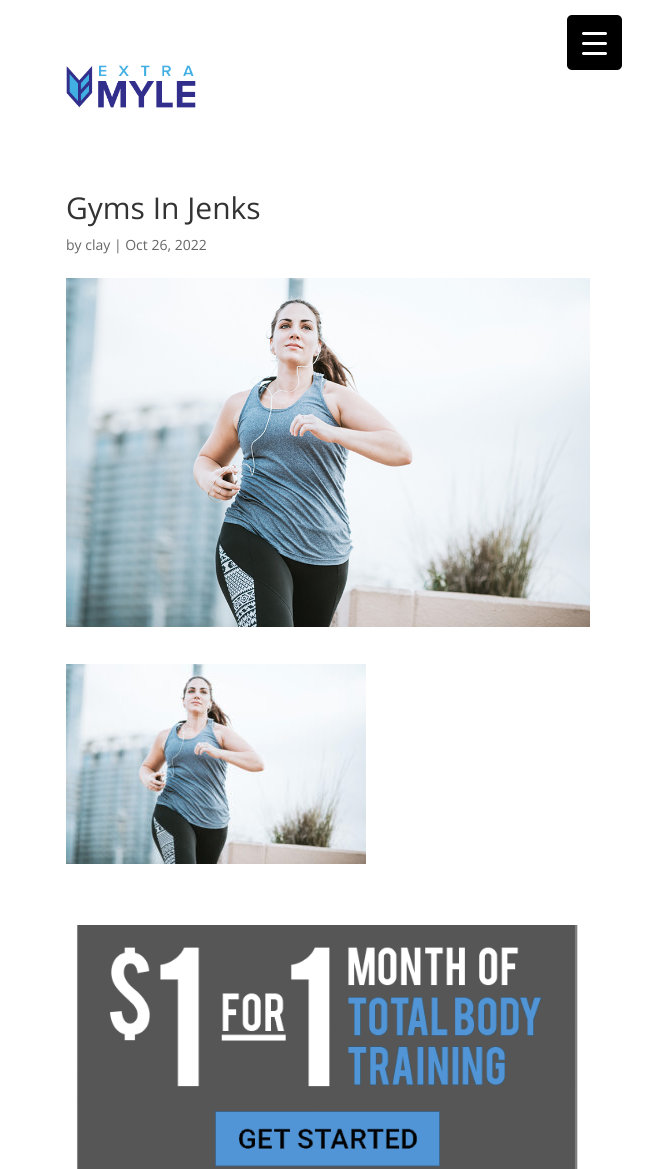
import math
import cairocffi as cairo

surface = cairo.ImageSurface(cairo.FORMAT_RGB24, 655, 1169)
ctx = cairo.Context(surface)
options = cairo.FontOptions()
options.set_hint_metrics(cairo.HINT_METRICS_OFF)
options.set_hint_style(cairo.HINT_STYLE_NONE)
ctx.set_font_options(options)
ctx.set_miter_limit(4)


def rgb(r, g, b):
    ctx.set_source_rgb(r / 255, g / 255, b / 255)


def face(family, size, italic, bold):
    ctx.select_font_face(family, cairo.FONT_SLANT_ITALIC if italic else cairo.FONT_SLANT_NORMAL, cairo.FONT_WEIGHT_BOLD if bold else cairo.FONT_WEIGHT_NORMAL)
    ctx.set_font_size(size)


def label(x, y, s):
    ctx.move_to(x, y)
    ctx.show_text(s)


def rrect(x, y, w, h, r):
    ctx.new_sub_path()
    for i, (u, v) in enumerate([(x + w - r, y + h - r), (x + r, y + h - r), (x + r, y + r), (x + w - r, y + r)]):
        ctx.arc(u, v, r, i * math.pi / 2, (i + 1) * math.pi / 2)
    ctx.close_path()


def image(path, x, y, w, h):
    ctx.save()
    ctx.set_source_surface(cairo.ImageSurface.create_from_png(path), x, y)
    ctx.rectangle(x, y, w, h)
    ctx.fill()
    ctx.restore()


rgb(255, 255, 255)
ctx.paint()
rgb(0, 0, 0)
rrect(567, 15, 55, 55, 5)
ctx.fill()
rgb(255, 255, 255)
rrect(582, 42, 25, 3, 1.5)
ctx.fill()
rrect(582, 32, 25, 3, 1.5)
ctx.fill()
rrect(582, 52, 25, 3, 1.5)
ctx.fill()
image('image0.png', 66, 65, 130, 43)
face('Open Sans', 30, 0, 0)
rgb(51, 51, 51)
label(66, 219, 'Gyms In Jenks')
face('Open Sans', 14, 0, 0)
rgb(102, 102, 102)
label(66, 250, 'by clay | Oct 26, 2022')
image('image1.png', 66, 278, 524, 349)
image('image2.png', 66, 664, 300, 200)
image('image3.png', 76, 925, 502, 244)
surface.write_to_png('render.png')
